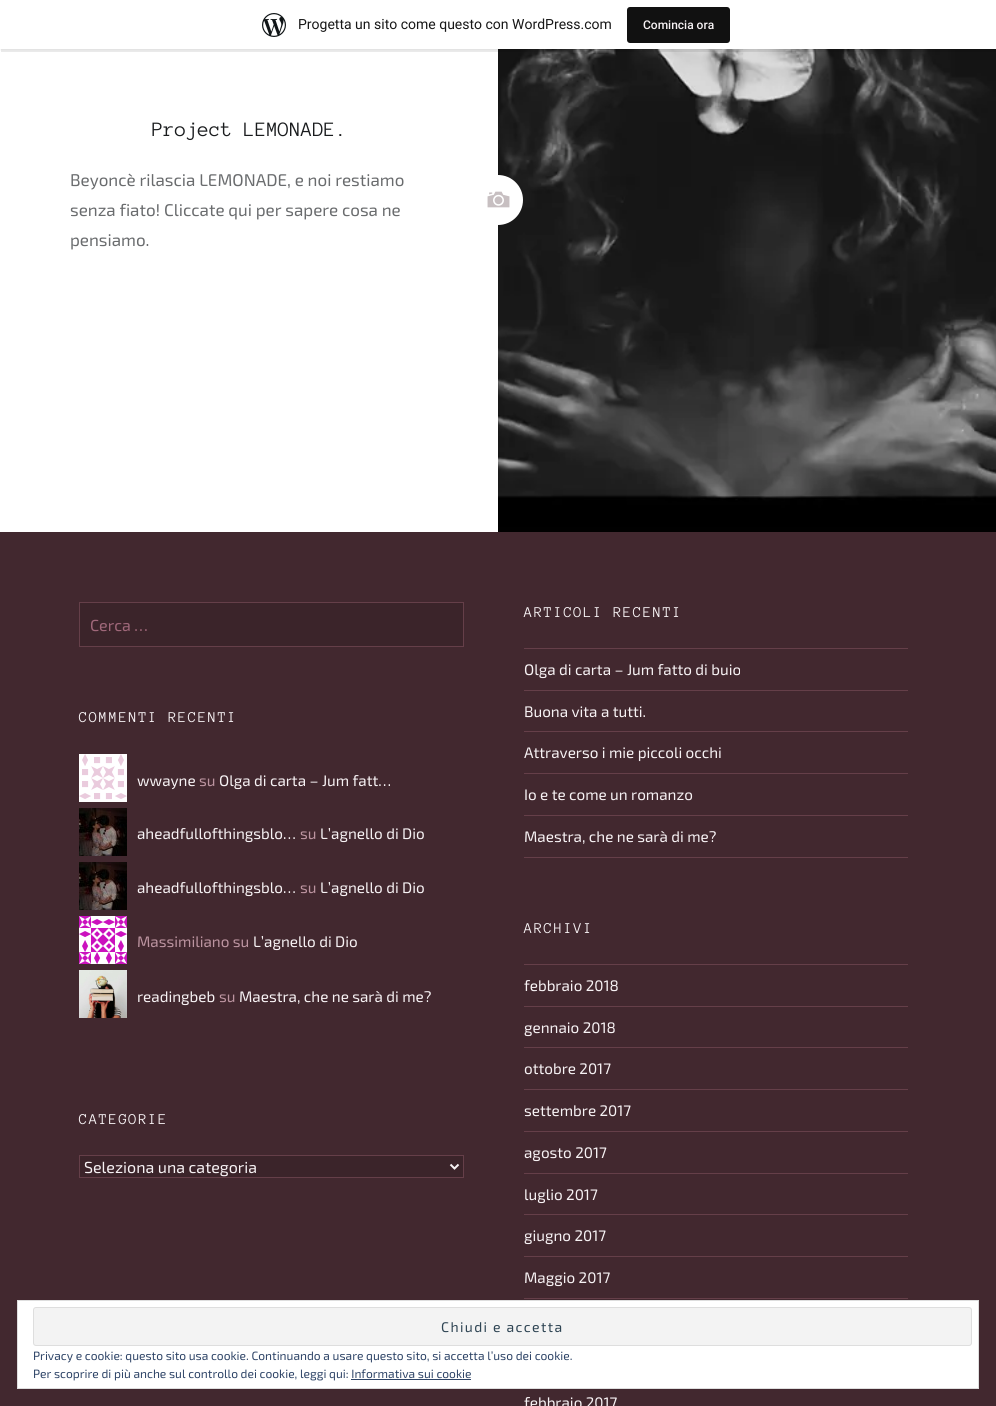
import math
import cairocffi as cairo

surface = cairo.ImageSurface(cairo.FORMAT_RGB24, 996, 1406)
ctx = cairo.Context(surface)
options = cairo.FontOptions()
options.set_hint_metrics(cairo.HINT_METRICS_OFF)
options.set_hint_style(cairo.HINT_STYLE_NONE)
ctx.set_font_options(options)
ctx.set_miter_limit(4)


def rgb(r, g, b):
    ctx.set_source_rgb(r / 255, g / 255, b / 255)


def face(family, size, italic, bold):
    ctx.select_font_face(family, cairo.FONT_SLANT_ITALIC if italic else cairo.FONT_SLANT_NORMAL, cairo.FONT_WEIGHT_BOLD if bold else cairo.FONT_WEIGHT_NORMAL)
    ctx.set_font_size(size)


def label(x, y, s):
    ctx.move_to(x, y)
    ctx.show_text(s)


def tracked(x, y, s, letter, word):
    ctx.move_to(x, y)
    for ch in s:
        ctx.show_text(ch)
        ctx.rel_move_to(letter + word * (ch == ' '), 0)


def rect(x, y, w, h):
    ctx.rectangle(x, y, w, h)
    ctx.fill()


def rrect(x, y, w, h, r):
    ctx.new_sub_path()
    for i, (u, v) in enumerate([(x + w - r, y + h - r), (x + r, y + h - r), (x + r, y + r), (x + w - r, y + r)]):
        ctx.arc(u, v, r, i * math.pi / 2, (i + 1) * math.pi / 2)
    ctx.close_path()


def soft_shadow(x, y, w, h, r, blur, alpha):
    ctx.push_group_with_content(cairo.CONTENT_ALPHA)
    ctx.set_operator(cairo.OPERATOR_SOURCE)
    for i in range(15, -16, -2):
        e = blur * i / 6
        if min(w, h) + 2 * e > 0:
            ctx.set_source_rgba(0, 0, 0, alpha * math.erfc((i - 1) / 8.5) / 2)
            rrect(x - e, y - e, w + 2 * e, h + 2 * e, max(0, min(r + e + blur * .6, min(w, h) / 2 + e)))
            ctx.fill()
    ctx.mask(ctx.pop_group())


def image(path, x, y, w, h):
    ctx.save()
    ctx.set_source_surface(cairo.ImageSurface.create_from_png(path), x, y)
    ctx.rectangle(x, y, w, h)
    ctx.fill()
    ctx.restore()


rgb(255, 255, 255)
ctx.paint()
image('image2.png', 498, 49, 498, 483)
rgb(0, 0, 0)
soft_shadow(0, 1, 996, 49, 0, 1, 0.05)
ctx.set_source_rgba(0, 0, 0, 0.08)
ctx.new_path()
ctx.move_to(1, 49)
ctx.line_to(1, 52)
ctx.line_to(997, 52)
ctx.line_to(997, 3)
ctx.line_to(996, 3)
ctx.line_to(996, 49)
ctx.close_path()
ctx.fill()
rgb(255, 255, 255)
rect(0, 0, 996, 49)
image('image0.png', 262, 13, 24, 24)
face('Roboto', 14, 0, 0)
rgb(23, 23, 23)
label(298, 29, 'Progetta un sito come questo con WordPress.com')
rgb(17, 17, 17)
rrect(627, 7, 103, 36, 3)
ctx.fill()
face('Roboto Medium', 12, 0, 0)
rgb(247, 242, 244)
label(643, 29, 'Comincia ora')
face('Anonymous Pro', 21, 0, 0)
rgb(26, 28, 30)
label(152, 136, 'Project LEMONADE.')
face('Exo 2', 17, 0, 0)
rgb(106, 108, 110)
label(70, 186, 'Beyoncè rilascia LEMONADE, e noi restiamo')
label(70, 216, 'senza fiato! Cliccate qui per sapere cosa ne')
label(70, 246, 'pensiamo.')
rgb(255, 255, 255)
ctx.new_path()
ctx.arc(498, 200, 25, 0, 2 * math.pi)
ctx.fill()
image('image1.png', 487, 191, 23, 17)
rgb(66, 40, 47)
rect(0, 532, 996, 874)
rgb(59, 36, 42)
ctx.rectangle(79.5, 602.5, 384, 44)
ctx.fill_preserve()
rgb(101, 63, 73)
ctx.set_line_width(1)
ctx.stroke()
face('Exo 2', 16, 0, 0)
rgb(160, 104, 122)
label(90, 631, 'Cerca …')
face('Anonymous Pro', 15.4, 0, 0)
rgb(247, 242, 244)
tracked(524, 617, 'ARTICOLI RECENTI', 1.5, 0)
rgb(101, 63, 73)
rect(524, 648, 384, 1)
rect(524, 690, 384, 1)
face('Exo 2', 15.25, 0, 0)
rgb(247, 242, 244)
label(524, 675, 'Olga di carta – Jum fatto di buio')
rgb(101, 63, 73)
rect(524, 731, 384, 1)
rgb(247, 242, 244)
label(524, 717, 'Buona vita a tutti.')
rgb(101, 63, 73)
rect(524, 773, 384, 1)
rgb(247, 242, 244)
label(524, 758, 'Attraverso i mie piccoli occhi')
rgb(101, 63, 73)
rect(524, 815, 384, 1)
rgb(247, 242, 244)
label(524, 800, 'Io e te come un romanzo')
rgb(101, 63, 73)
rect(524, 857, 384, 1)
rgb(247, 242, 244)
label(524, 842, 'Maestra, che ne sarà di me?')
face('Anonymous Pro', 15.4, 0, 0)
tracked(79, 722, 'COMMENTI RECENTI', 1.5, 0)
image('image3.png', 79, 754, 48, 48)
face('Exo 2', 15.25, 0, 0)
label(137, 786, 'wwayne')
rgb(188, 148, 160)
label(199, 786, 'su')
rgb(247, 242, 244)
label(219, 786, 'Olga di carta – Jum fatt…')
image('image4.png', 79, 808, 48, 48)
label(137, 839, 'aheadfullofthingsblo…')
rgb(188, 148, 160)
label(300, 839, 'su')
rgb(247, 242, 244)
label(320, 839, 'L’agnello di Dio')
image('image4.png', 79, 862, 48, 48)
label(137, 893, 'aheadfullofthingsblo…')
rgb(188, 148, 160)
label(300, 893, 'su')
rgb(247, 242, 244)
label(320, 893, 'L’agnello di Dio')
image('image5.png', 79, 916, 48, 48)
rgb(188, 148, 160)
label(137, 947, 'Massimiliano su')
rgb(247, 242, 244)
label(253, 947, 'L’agnello di Dio')
image('image6.png', 79, 970, 48, 48)
label(137, 1002, 'readingbeb')
rgb(188, 148, 160)
label(219, 1002, 'su')
rgb(247, 242, 244)
label(239, 1002, 'Maestra, che ne sarà di me?')
face('Anonymous Pro', 15.4, 0, 0)
tracked(79, 1124, 'CATEGORIE', 1.5, 0)
rgb(59, 36, 42)
ctx.rectangle(79.5, 1155.5, 384, 22)
ctx.fill_preserve()
rgb(101, 63, 73)
ctx.stroke()
ctx.new_path()
ctx.move_to(450.5, 1164.5)
ctx.line_to(454.5, 1168.5)
ctx.line_to(458.5, 1164.5)
rgb(247, 242, 244)
ctx.set_line_width(2)
ctx.stroke()
face('Exo 2', 16, 0, 0)
label(84, 1173, 'Seleziona una categoria')
face('Anonymous Pro', 15.4, 0, 0)
tracked(524, 933, 'ARCHIVI', 1.5, 0)
rgb(101, 63, 73)
rect(524, 964, 384, 1)
rect(524, 1006, 384, 1)
face('Exo 2', 15.25, 0, 0)
rgb(247, 242, 244)
label(524, 991, 'febbraio 2018')
rgb(101, 63, 73)
rect(524, 1047, 384, 1)
rgb(247, 242, 244)
label(524, 1033, 'gennaio 2018')
rgb(101, 63, 73)
rect(524, 1089, 384, 1)
rgb(247, 242, 244)
label(524, 1074, 'ottobre 2017')
rgb(101, 63, 73)
rect(524, 1131, 384, 1)
rgb(247, 242, 244)
label(524, 1116, 'settembre 2017')
rgb(101, 63, 73)
rect(524, 1173, 384, 1)
rgb(247, 242, 244)
label(524, 1158, 'agosto 2017')
rgb(101, 63, 73)
rect(524, 1214, 384, 1)
rgb(247, 242, 244)
label(524, 1200, 'luglio 2017')
rgb(101, 63, 73)
rect(524, 1256, 384, 1)
rgb(247, 242, 244)
label(524, 1241, 'giugno 2017')
rgb(101, 63, 73)
rect(524, 1298, 384, 1)
rgb(247, 242, 244)
label(524, 1283, 'Maggio 2017')
label(524, 1408, 'febbraio 2017')
rgb(255, 255, 255)
ctx.rectangle(17.5, 1300.5, 961, 88)
ctx.fill_preserve()
rgb(222, 222, 222)
ctx.set_line_width(1)
ctx.stroke()
rgb(243, 243, 243)
rrect(33.5, 1307.5, 938, 38, 2.5)
ctx.fill_preserve()
rgb(222, 222, 222)
ctx.stroke()
face('Exo 2', 14, 0, 0)
rgb(46, 68, 83)
tracked(441, 1332, 'Chiudi e accetta', 1.4, 0)
face('Exo 2', 12, 0, 0)
rgb(46, 68, 103)
label(33, 1360, 'Privacy e cookie: questo sito usa cookie. Continuando a usare questo sito, si accetta l’uso dei cookie.')
label(33, 1378, 'Per scoprire di più anche sul controllo dei cookie, leggi qui: Informativa sui cookie')
rect(351, 1379, 120, 1)
surface.write_to_png('render.png')
